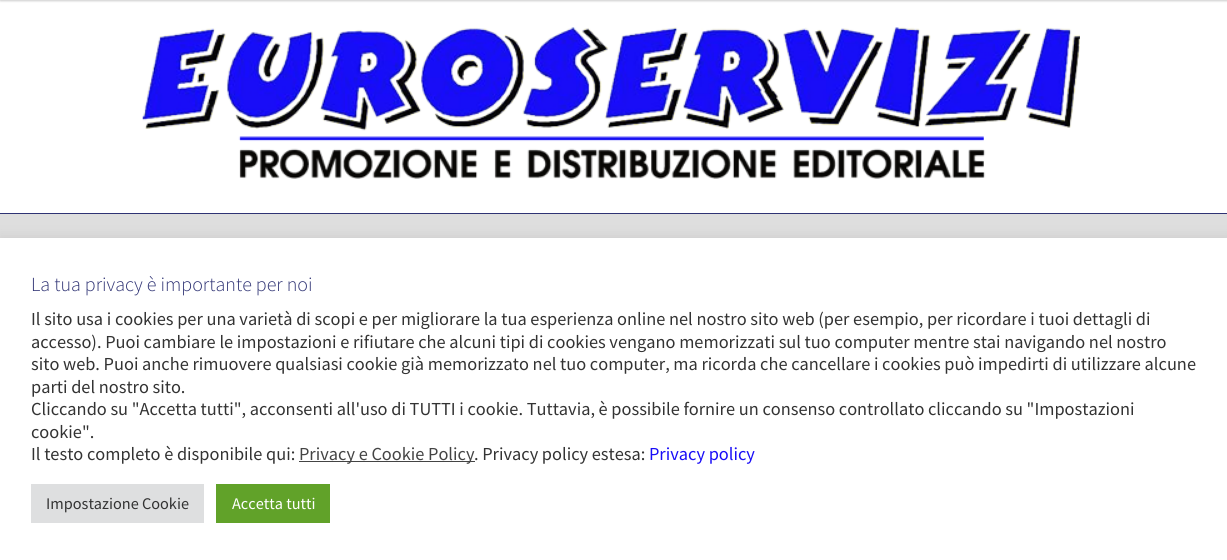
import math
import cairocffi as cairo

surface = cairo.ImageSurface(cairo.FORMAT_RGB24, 1227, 560)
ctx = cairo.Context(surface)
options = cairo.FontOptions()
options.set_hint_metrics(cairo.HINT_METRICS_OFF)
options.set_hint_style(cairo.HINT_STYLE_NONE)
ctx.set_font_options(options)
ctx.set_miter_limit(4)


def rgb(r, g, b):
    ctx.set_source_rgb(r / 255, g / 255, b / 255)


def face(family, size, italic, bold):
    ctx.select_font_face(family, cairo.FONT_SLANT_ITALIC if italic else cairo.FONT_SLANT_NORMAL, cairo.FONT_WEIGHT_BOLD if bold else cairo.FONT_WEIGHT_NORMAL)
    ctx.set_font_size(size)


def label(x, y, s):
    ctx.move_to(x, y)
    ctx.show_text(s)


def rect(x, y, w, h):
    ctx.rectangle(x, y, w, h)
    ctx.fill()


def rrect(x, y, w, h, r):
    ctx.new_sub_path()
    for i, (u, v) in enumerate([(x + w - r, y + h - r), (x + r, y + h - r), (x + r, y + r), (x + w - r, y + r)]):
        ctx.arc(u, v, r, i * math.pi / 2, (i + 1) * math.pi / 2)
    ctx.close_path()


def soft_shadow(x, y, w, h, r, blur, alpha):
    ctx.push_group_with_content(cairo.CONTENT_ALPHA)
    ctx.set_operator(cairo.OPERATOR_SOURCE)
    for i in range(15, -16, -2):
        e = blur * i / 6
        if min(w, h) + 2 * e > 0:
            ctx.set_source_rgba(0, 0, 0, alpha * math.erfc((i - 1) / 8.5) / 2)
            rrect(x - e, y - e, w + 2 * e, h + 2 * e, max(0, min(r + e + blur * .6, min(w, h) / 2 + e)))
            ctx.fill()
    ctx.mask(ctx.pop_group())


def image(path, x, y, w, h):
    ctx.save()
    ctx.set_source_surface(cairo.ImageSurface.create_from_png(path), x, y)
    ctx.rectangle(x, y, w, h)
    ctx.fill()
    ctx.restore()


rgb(255, 255, 255)
ctx.paint()
rgb(0, 0, 0)
soft_shadow(0, -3, 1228, 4, 0, 1, 0.2)
image('image0.png', 142, 27, 938, 152)
rgb(222, 222, 222)
rect(0, 214, 1227, 24)
rgb(47, 51, 116)
rect(0, 213, 1227, 1)
rgb(172, 171, 171)
soft_shadow(0, 236, 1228, 323, 0, 6, 0.3)
rgb(255, 255, 255)
rect(0, 238, 1227, 322)
face('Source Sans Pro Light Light', 20, 0, 0)
rgb(47, 51, 116)
label(31, 291, 'La tua privacy è importante per noi')
face('Source Sans Pro', 18.33, 0, 0)
rgb(51, 51, 51)
label(31, 325, 'Il sito usa i cookies per una varietà di scopi e per migliorare la tua esperienza online nel nostro sito web (per esempio, per ricordare i tuoi dettagli di')
label(31, 348, 'accesso). Puoi cambiare le impostazioni e rifiutare che alcuni tipi di cookies vengano memorizzati sul tuo computer mentre stai navigando nel nostro')
label(31, 370, 'sito web. Puoi anche rimuovere qualsiasi cookie già memorizzato nel tuo computer, ma ricorda che cancellare i cookies può impedirti di utilizzare alcune')
label(31, 393, 'parti del nostro sito.')
label(31, 415, 'Cliccando su "Accetta tutti", acconsenti all\'uso di TUTTI i cookie. Tuttavia, è possibile fornire un consenso controllato cliccando su "Impostazioni')
label(31, 438, 'cookie".')
label(31, 460, 'Il testo completo è disponibile qui:')
rgb(68, 68, 68)
rect(299, 461, 176, 1)
label(299, 460, 'Privacy e Cookie Policy')
rgb(51, 51, 51)
label(474, 460, '. Privacy policy estesa:')
rgb(25, 13, 247)
label(649, 460, 'Privacy policy')
rgb(222, 223, 224)
rect(31, 484, 173, 39)
face('Source Sans Pro', 16.25, 0, 0)
rgb(51, 51, 51)
label(46, 509, 'Impostazione Cookie')
rgb(97, 162, 41)
rect(216, 484, 114, 39)
rgb(255, 255, 255)
label(232, 509, 'Accetta tutti')
surface.write_to_png('render.png')
